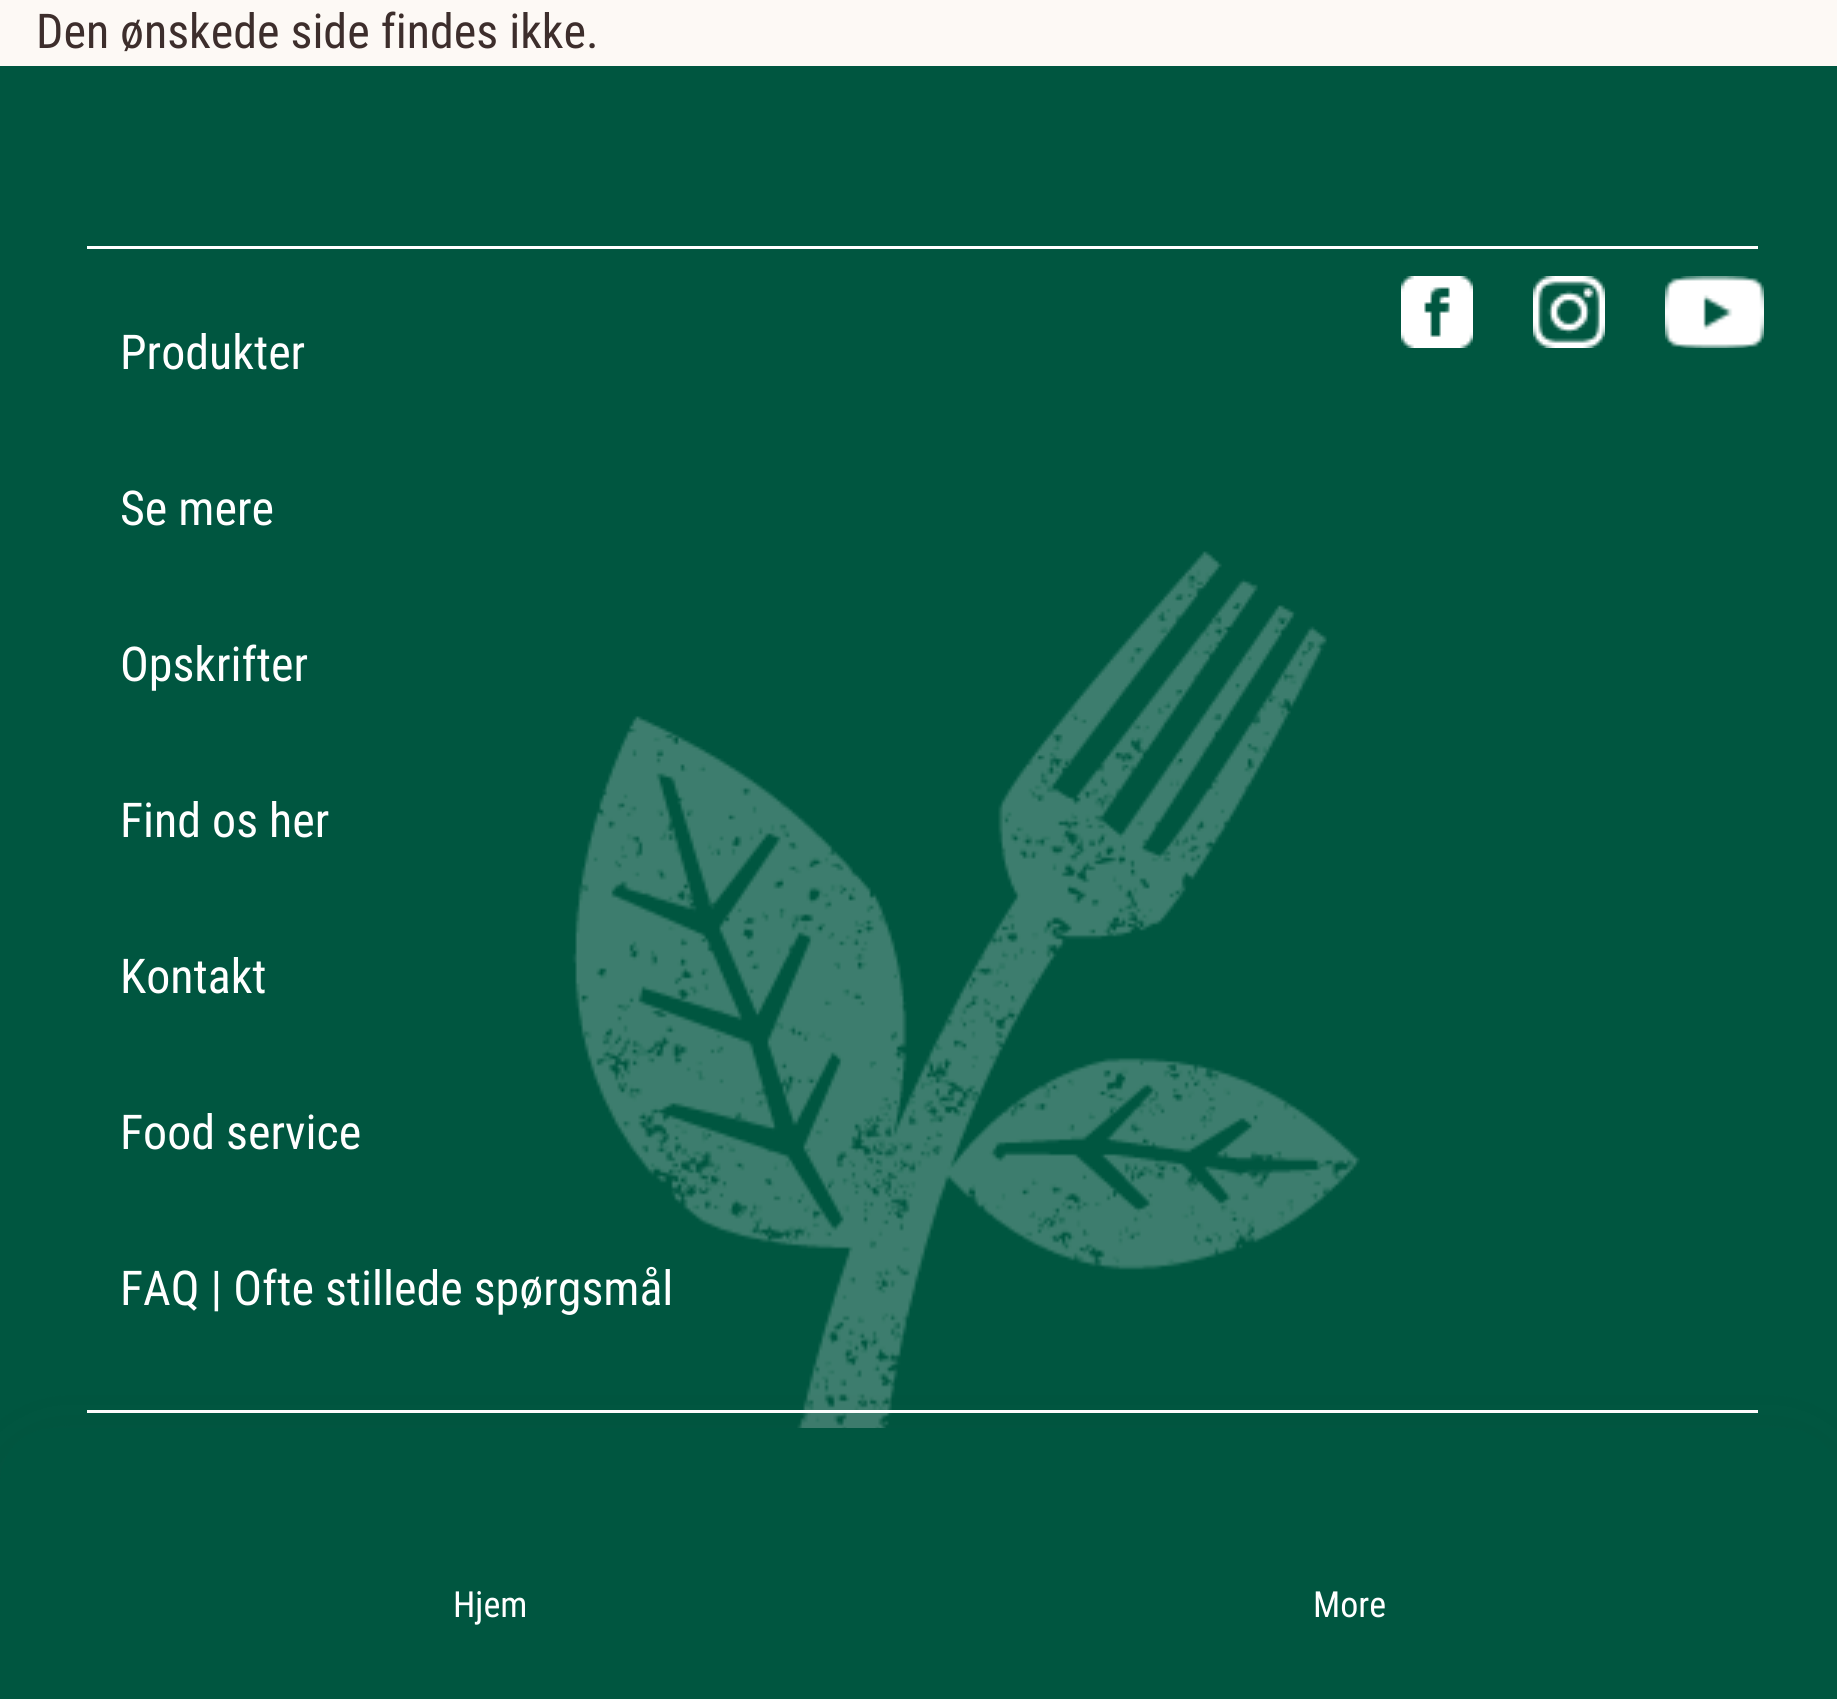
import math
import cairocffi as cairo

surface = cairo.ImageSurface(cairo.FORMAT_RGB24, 1837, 1699)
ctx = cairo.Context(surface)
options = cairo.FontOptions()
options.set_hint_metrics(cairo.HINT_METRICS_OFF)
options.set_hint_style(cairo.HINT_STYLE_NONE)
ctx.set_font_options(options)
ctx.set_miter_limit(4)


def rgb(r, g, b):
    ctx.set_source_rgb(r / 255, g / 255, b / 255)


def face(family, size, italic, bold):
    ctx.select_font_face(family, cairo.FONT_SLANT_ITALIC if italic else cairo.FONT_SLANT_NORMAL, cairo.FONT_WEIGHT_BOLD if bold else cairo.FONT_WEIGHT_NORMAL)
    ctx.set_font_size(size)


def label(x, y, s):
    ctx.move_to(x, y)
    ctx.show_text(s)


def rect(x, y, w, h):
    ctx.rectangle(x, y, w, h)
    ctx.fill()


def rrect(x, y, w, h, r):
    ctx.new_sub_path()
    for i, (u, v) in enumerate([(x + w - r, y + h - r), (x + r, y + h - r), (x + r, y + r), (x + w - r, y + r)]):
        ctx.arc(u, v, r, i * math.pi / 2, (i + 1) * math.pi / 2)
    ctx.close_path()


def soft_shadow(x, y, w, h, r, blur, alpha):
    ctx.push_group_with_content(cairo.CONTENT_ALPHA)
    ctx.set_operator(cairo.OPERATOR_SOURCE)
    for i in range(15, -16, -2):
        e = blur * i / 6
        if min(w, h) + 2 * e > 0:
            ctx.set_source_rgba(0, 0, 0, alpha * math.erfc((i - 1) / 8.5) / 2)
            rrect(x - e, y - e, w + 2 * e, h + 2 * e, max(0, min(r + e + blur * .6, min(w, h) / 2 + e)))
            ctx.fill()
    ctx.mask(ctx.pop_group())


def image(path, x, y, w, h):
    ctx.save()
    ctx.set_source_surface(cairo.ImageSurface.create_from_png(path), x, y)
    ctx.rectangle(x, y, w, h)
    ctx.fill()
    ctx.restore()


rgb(253, 249, 245)
ctx.paint()
face('Roboto Condensed', 48, 0, 0)
rgb(61, 46, 44)
label(36, 48, 'Den ønskede side findes ikke.')
rgb(0, 86, 64)
rect(0, 66, 1837, 1416)
image('image0.png', 572, 551, 788, 877)
rgb(255, 255, 255)
rect(87, 246, 1671, 3)
image('image1.png', 1401, 276, 72, 72)
image('image2.png', 1533, 276, 72, 72)
image('image3.png', 1665, 276, 99, 72)
label(120, 369, 'Produkter')
label(120, 525, 'Se mere')
label(120, 681, 'Opskrifter')
label(120, 837, 'Find os her')
label(120, 993, 'Kontakt')
label(120, 1149, 'Food service')
label(120, 1305, 'FAQ | Ofte stillede spørgsmål')
rect(87, 1410, 1671, 3)
rgb(61, 46, 44)
soft_shadow(0, 1440, 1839, 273, 54, 30, 0.1)
rgb(0, 86, 64)
ctx.new_path()
ctx.move_to(54, 1428)
ctx.line_to(1785, 1428)
ctx.curve_to(1815, 1428, 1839, 1452, 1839, 1482)
ctx.line_to(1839, 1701)
ctx.line_to(0, 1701)
ctx.line_to(0, 1482)
ctx.curve_to(0, 1452, 24, 1428, 54, 1428)
ctx.close_path()
ctx.fill()
face('Roboto Condensed', 36, 0, 0)
rgb(255, 255, 255)
label(453, 1617, 'Hjem')
label(1313, 1617, 'More')
surface.write_to_png('render.png')
